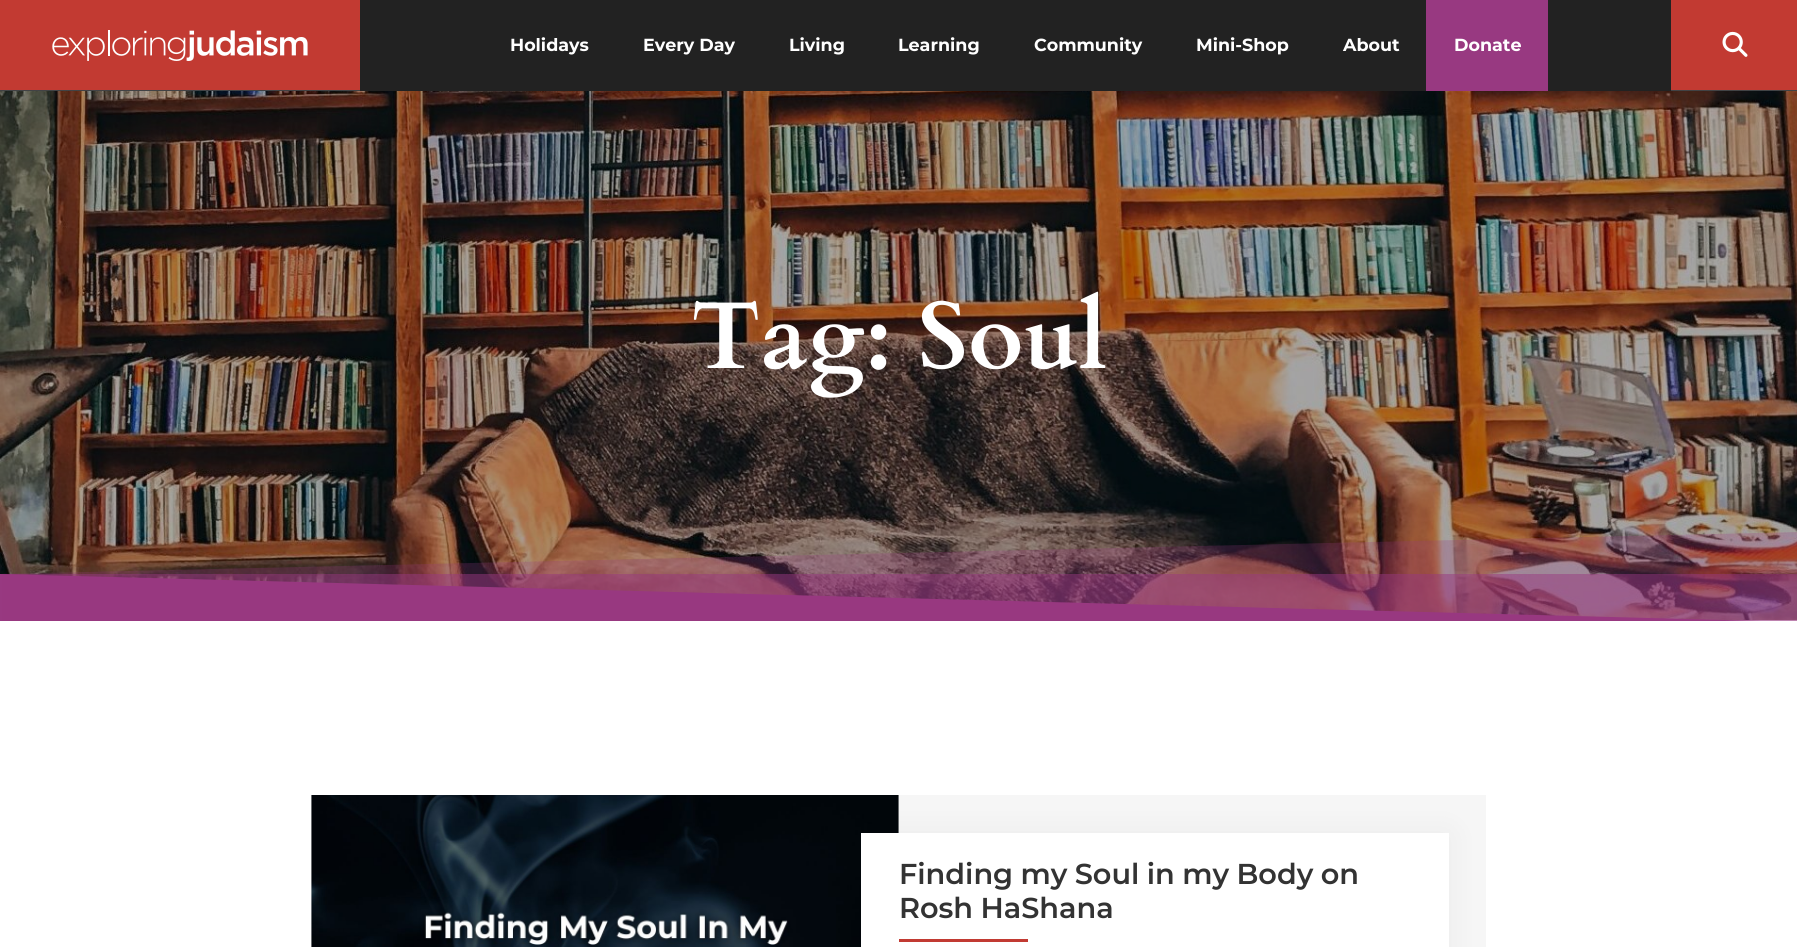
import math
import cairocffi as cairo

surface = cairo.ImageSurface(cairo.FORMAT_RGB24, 1797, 947)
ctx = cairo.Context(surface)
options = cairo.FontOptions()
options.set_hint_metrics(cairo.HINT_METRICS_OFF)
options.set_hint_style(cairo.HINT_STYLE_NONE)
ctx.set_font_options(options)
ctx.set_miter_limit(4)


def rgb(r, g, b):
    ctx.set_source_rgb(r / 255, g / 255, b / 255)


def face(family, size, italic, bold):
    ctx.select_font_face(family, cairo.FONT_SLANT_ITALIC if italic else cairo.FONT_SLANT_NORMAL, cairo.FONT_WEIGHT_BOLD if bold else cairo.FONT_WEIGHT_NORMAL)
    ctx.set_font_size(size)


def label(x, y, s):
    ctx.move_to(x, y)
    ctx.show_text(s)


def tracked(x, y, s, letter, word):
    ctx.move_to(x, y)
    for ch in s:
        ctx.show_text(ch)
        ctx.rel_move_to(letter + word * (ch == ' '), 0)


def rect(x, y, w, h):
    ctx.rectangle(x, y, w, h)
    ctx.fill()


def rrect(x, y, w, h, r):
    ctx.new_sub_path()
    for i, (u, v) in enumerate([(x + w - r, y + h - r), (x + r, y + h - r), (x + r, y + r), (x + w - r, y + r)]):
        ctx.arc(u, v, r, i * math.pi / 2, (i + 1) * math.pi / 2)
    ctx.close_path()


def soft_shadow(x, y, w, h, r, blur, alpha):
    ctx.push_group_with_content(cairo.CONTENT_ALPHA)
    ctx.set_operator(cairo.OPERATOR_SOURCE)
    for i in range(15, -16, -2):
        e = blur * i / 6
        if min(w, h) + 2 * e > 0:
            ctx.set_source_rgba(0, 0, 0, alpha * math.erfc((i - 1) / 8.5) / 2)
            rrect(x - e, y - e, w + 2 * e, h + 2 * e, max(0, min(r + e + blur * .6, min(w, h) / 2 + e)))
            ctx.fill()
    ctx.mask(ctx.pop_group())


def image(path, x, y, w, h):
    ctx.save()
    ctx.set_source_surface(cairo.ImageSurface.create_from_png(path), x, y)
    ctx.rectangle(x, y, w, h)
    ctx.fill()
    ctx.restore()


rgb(255, 255, 255)
ctx.paint()
rgb(65, 67, 69)
rect(0, 90, 1797, 1)
rgb(194, 58, 50)
rect(0, 0, 360, 90)
image('image0.png', 52, 30, 256, 31)
rgb(34, 34, 34)
rect(360, 0, 1311, 91)
face('Montserrat', 17.5, 0, 1)
rgb(255, 255, 255)
label(510, 51, 'Holidays')
label(643, 51, 'Every Day')
label(789, 51, 'Living')
label(898, 51, 'Learning')
label(1034, 51, 'Community')
label(1196, 51, 'Mini-Shop')
label(1343, 51, 'About')
rgb(152, 57, 129)
rect(1426, 0, 122, 91)
rgb(255, 255, 255)
label(1454, 51, 'Donate')
rgb(194, 58, 50)
rect(1671, 0, 126, 90)
image('image1.png', 1722, 31, 26, 26)
image('image2.png', 0, 91, 1797, 529)
face('Cardo', 95, 0, 1)
rgb(255, 255, 255)
label(691, 368, 'Tag: Soul')
ctx.save()
ctx.rectangle(0, 530, 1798, 91)
ctx.clip()
rgb(152, 57, 129)
ctx.new_path()
ctx.move_to(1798, 622)
ctx.line_to(-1, 622)
ctx.line_to(-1, 574)
ctx.close_path()
ctx.fill()
ctx.restore()
ctx.set_source_rgba(0.596, 0.224, 0.506, 0.5)
rect(2, 574, 1795, 47)
ctx.save()
ctx.rectangle(0, 530, 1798, 91)
ctx.clip()
ctx.set_source_rgba(0.596, 0.224, 0.506, 0.25)
ctx.new_path()
ctx.move_to(-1, 622)
ctx.line_to(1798, 622)
ctx.line_to(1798, 532)
ctx.line_to(-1, 574)
ctx.close_path()
ctx.fill()
ctx.restore()
rgb(246, 246, 246)
rect(311, 795, 1175, 152)
image('image3.png', 311, 795, 588, 152)
rgb(0, 0, 0)
soft_shadow(861, 834, 588, 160, 0, 15.5, 0.05)
rgb(255, 255, 255)
rect(861, 833, 588, 114)
face('Montserrat SemiBold', 28.75, 0, 0)
rgb(51, 51, 51)
tracked(899, 884, 'Finding my Soul in my Body on', 0, -0.5)
tracked(899, 918, 'Rosh HaShana', 0, -0.5)
rgb(194, 58, 50)
rect(899, 939, 129, 3)
surface.write_to_png('render.png')
